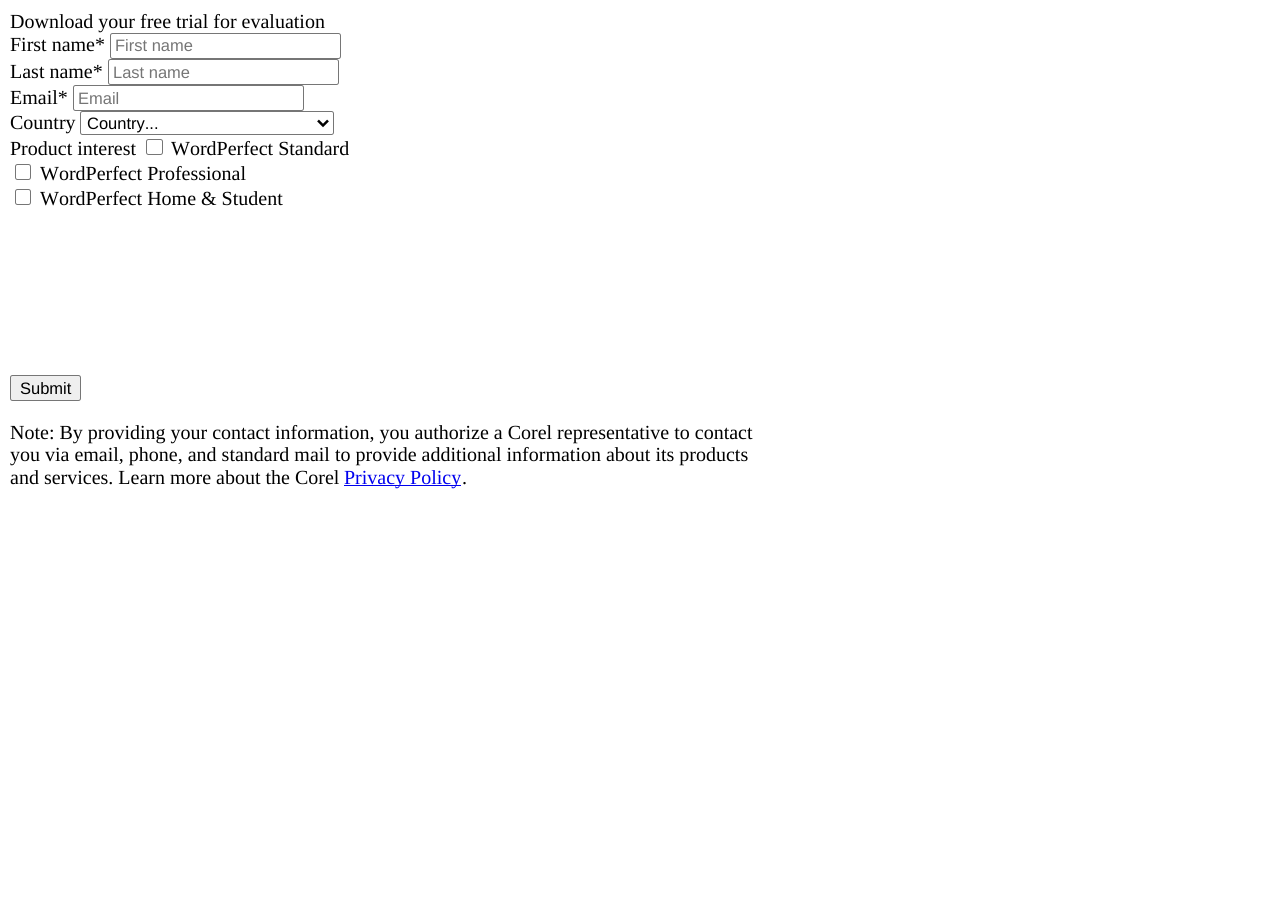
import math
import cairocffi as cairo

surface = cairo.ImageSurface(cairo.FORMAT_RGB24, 1277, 909)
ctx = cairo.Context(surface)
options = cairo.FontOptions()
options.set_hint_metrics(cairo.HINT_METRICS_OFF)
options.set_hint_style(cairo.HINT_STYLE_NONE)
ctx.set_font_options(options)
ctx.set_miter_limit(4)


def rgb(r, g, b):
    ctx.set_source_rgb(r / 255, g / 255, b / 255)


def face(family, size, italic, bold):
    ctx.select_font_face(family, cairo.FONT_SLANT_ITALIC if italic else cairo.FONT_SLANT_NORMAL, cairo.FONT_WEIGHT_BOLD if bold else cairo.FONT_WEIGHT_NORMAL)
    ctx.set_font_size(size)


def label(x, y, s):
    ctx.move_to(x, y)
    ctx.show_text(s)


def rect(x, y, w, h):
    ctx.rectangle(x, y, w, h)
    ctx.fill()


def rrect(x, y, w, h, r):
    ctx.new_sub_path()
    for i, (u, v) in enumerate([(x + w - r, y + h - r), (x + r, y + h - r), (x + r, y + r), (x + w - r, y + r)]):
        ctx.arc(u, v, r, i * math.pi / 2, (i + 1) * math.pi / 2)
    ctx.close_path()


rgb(255, 255, 255)
ctx.paint()
face('Liberation Serif', 20, 0, 0)
rgb(0, 0, 0)
label(10, 28, 'Download your free trial for evaluation')
label(10, 51, 'First name*')
rrect(110.5, 33.5, 230, 25, 2)
rgb(118, 118, 118)
ctx.set_line_width(1)
ctx.stroke()
face('Liberation Sans', 16.5, 0, 0)
rgb(117, 117, 117)
label(115, 51, 'First name')
face('Liberation Serif', 20, 0, 0)
rgb(0, 0, 0)
label(10, 78, 'Last name*')
rrect(108.5, 59.5, 230, 25, 2)
rgb(118, 118, 118)
ctx.stroke()
face('Liberation Sans', 16.5, 0, 0)
rgb(117, 117, 117)
label(113, 78, 'Last name')
face('Liberation Serif', 20, 0, 0)
rgb(0, 0, 0)
label(10, 104, 'Email*')
rrect(73.5, 85.5, 230, 25, 2)
rgb(118, 118, 118)
ctx.stroke()
face('Liberation Sans', 16.5, 0, 0)
rgb(117, 117, 117)
label(78, 104, 'Email')
face('Liberation Serif', 20, 0, 0)
rgb(0, 0, 0)
label(10, 129, 'Country')
rrect(80.5, 111.5, 253, 23, 2)
rgb(118, 118, 118)
ctx.stroke()
ctx.new_path()
ctx.move_to(318, 120.5)
ctx.line_to(323, 125.5)
ctx.line_to(328, 120.5)
rgb(0, 0, 0)
ctx.set_line_width(2.5)
ctx.stroke()
face('Liberation Sans', 16.5, 0, 0)
label(87, 129, 'Country...')
face('Liberation Serif', 20, 0, 0)
label(10, 155, 'Product interest')
rrect(146.5, 139.5, 16, 15, 2)
rgb(118, 118, 118)
ctx.set_line_width(1)
ctx.stroke()
rgb(0, 0, 0)
label(171, 155, 'WordPerfect Standard')
rrect(15.5, 164.5, 15, 15, 2)
rgb(118, 118, 118)
ctx.stroke()
rgb(0, 0, 0)
label(40, 180, 'WordPerfect Professional')
rrect(15.5, 189.5, 15, 15, 2)
rgb(118, 118, 118)
ctx.stroke()
rgb(0, 0, 0)
label(40, 205, 'WordPerfect Home & Student')
rgb(239, 239, 239)
rrect(10.5, 375.5, 70, 25, 2)
ctx.fill_preserve()
rgb(118, 118, 118)
ctx.stroke()
face('Liberation Sans', 16.5, 0, 0)
rgb(0, 0, 0)
label(20, 394, 'Submit')
face('Liberation Serif', 20, 0, 0)
label(10, 439, 'Note: By providing your contact information, you authorize a Corel representative to contact')
label(10, 461, 'you via email, phone, and standard mail to provide additional information about its products')
label(10, 484, 'and services. Learn more about the Corel')
rgb(0, 0, 238)
rect(344, 485, 117, 1)
label(344, 484, 'Privacy Policy')
rgb(0, 0, 0)
label(462, 484, '.')
surface.write_to_png('render.png')
